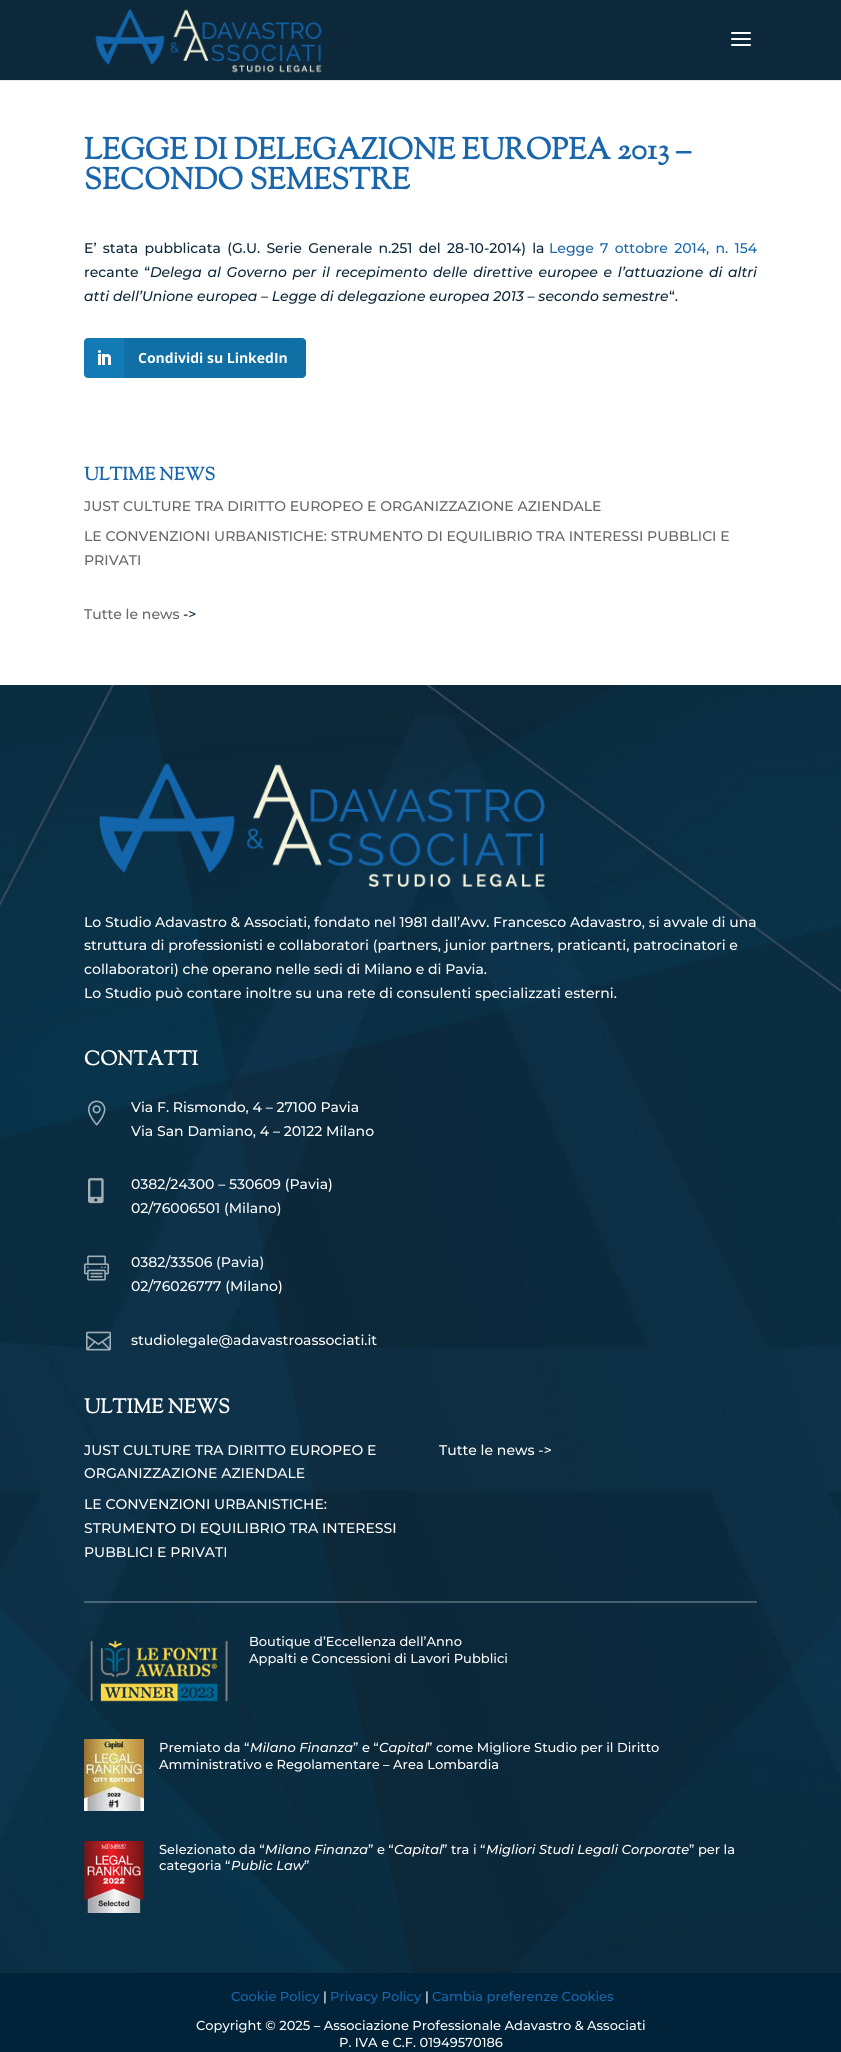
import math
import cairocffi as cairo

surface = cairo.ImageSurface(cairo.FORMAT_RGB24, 841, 2052)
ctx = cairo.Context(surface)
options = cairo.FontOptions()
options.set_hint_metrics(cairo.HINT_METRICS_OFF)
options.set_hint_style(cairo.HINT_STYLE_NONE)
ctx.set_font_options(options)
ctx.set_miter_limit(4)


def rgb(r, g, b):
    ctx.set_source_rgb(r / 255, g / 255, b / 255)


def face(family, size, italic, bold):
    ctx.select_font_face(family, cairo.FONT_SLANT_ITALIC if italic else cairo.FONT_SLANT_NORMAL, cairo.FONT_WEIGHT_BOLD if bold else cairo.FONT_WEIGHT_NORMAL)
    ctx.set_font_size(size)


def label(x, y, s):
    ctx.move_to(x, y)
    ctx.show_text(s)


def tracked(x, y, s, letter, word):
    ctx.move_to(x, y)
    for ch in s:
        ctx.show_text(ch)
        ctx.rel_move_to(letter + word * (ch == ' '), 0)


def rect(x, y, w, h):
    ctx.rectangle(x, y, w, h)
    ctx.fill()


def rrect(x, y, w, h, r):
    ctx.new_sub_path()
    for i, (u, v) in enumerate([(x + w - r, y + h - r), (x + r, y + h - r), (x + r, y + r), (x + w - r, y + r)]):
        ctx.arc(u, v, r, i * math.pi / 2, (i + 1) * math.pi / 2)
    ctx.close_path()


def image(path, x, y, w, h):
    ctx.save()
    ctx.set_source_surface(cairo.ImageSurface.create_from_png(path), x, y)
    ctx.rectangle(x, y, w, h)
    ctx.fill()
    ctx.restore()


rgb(255, 255, 255)
ctx.paint()
rgb(230, 230, 230)
rect(0, 80, 841, 1)
rgb(13, 40, 58)
rect(0, 0, 841, 80)
image('image0.png', 95, 9, 227, 64)
image('image1.png', 731, 32, 20, 14)
face('Sorts Mill Goudy', 30, 0, 1)
rgb(25, 102, 171)
label(84, 159, 'LEGGE DI DELEGAZIONE EUROPEA 2013 –')
label(84, 189, 'SECONDO SEMESTRE')
face('Montserrat Medium', 14, 0, 0)
rgb(13, 40, 58)
tracked(84, 253, 'E’ stata pubblicata (G.U. Serie Generale n.251 del 28-10-2014) la', 0, 2.5)
rgb(25, 102, 171)
tracked(549, 253, 'Legge 7 ottobre 2014, n. 154', 0, 2.5)
rgb(13, 40, 58)
tracked(84, 277, 'recante “', 0, 1.9)
face('Montserrat Medium', 14, 1, 0)
tracked(150, 277, 'Delega al Governo per il recepimento delle direttive europee e l’attuazione di altri', 0, 1.9)
label(84, 301, 'atti dell’Unione europea – Legge di delegazione europea 2013 – secondo semestre')
face('Montserrat Medium', 14, 0, 0)
label(669, 301, '“.')
rgb(18, 123, 182)
rrect(84, 338, 222, 40, 4)
ctx.fill()
image('image2.png', 98, 350, 13, 15)
ctx.set_source_rgba(0, 0, 0, 0.1)
ctx.new_path()
ctx.move_to(124, 338)
ctx.line_to(302, 338)
ctx.curve_to(304, 338, 306, 340, 306, 342)
ctx.line_to(306, 374)
ctx.curve_to(306, 376, 304, 378, 302, 378)
ctx.line_to(124, 378)
ctx.close_path()
ctx.fill()
face('Open Sans', 14, 0, 1)
rgb(255, 255, 255)
label(138, 363, 'Condividi su LinkedIn')
face('Sorts Mill Goudy', 18, 0, 1)
rgb(25, 102, 171)
label(84, 480, 'ULTIME NEWS')
face('Montserrat Medium', 14, 0, 0)
rgb(102, 102, 102)
label(84, 511, 'JUST CULTURE TRA DIRITTO EUROPEO E ORGANIZZAZIONE AZIENDALE')
label(84, 541, 'LE CONVENZIONI URBANISTICHE: STRUMENTO DI EQUILIBRIO TRA INTERESSI PUBBLICI E')
label(84, 565, 'PRIVATI')
label(84, 619, 'Tutte le news')
rgb(13, 40, 58)
label(183, 619, '->')
image('image3.png', 0, 685, 841, 1288)
image('image4.png', 99, 763, 446, 124)
rgb(255, 255, 255)
label(84, 927, 'Lo Studio Adavastro & Associati, fondato nel 1981 dall’Avv. Francesco Adavastro, si avvale di una')
label(84, 950, 'struttura di professionisti e collaboratori (partners, junior partners, praticanti, patrocinatori e')
label(84, 974, 'collaboratori) che operano nelle sedi di Milano e di Pavia.')
label(84, 998, 'Lo Studio può contare inoltre su una rete di consulenti specializzati esterni.')
face('Sorts Mill Goudy', 20, 0, 1)
label(84, 1065, 'CONTATTI')
image('image5.png', 87, 1100, 19, 26)
face('Montserrat Medium', 14, 0, 0)
label(131, 1112, 'Via F. Rismondo, 4 – 27100 Pavia')
label(131, 1136, 'Via San Damiano, 4 – 20122 Milano')
image('image6.png', 88, 1178, 16, 26)
label(131, 1189, '0382/24300 – 530609 (Pavia)')
label(131, 1213, '02/76006501 (Milano)')
image('image7.png', 84, 1255, 25, 26)
label(131, 1267, '0382/33506 (Pavia)')
label(131, 1291, '02/76026777 (Milano)')
image('image8.png', 86, 1331, 25, 20)
label(131, 1345, 'studiolegale@adavastroassociati.it')
face('Sorts Mill Goudy', 20, 0, 1)
label(84, 1413, 'ULTIME NEWS')
face('Montserrat Medium', 14, 0, 0)
label(84, 1455, 'JUST CULTURE TRA DIRITTO EUROPEO E')
label(84, 1478, 'ORGANIZZAZIONE AZIENDALE')
label(84, 1509, 'LE CONVENZIONI URBANISTICHE:')
label(84, 1533, 'STRUMENTO DI EQUILIBRIO TRA INTERESSI')
label(84, 1557, 'PUBBLICI E PRIVATI')
label(439, 1455, 'Tutte le news ->')
ctx.set_source_rgba(1, 1, 1, 0.25)
rect(84, 1601, 673, 2)
image('image9.png', 90, 1640, 138, 62)
face('Montserrat Medium', 13, 0, 0)
rgb(255, 255, 255)
label(249, 1646, 'Boutique d’Eccellenza dell’Anno')
label(249, 1663, 'Appalti e Concessioni di Lavori Pubblici')
image('image10.png', 84, 1739, 60, 72)
label(159, 1752, 'Premiato da “')
face('Montserrat Medium', 13, 1, 0)
label(250, 1752, 'Milano Finanza')
face('Montserrat Medium', 13, 0, 0)
label(353, 1752, '” e “')
face('Montserrat Medium', 13, 1, 0)
label(379, 1752, 'Capital')
face('Montserrat Medium', 13, 0, 0)
label(427, 1752, '” come Migliore Studio per il Diritto')
label(159, 1769, 'Amministrativo e Regolamentare – Area Lombardia')
image('image11.png', 84, 1841, 60, 72)
label(159, 1854, 'Selezionato da “')
face('Montserrat Medium', 13, 1, 0)
label(265, 1854, 'Milano Finanza')
face('Montserrat Medium', 13, 0, 0)
label(368, 1854, '” e “')
face('Montserrat Medium', 13, 1, 0)
label(394, 1854, 'Capital')
face('Montserrat Medium', 13, 0, 0)
label(442, 1854, '” tra i “')
face('Montserrat Medium', 13, 1, 0)
label(486, 1854, 'Migliori Studi Legali Corporate')
face('Montserrat Medium', 13, 0, 0)
label(689, 1854, '” per la')
label(159, 1870, 'categoria “')
face('Montserrat Medium', 13, 1, 0)
label(231, 1870, 'Public Law')
face('Montserrat Medium', 13, 0, 0)
label(304, 1870, '”')
rgb(0, 35, 58)
rect(0, 1973, 841, 79)
rgb(25, 102, 171)
label(231, 2001, 'Cookie Policy')
rgb(255, 255, 255)
label(323, 2001, '|')
rgb(25, 102, 171)
label(330, 2001, 'Privacy Policy')
rgb(255, 255, 255)
label(425, 2001, '|')
rgb(25, 102, 171)
label(432, 2001, 'Cambia preferenze Cookies')
rgb(255, 255, 255)
label(196, 2030, 'Copyright © 2025 – Associazione Professionale Adavastro & Associati')
label(339, 2047, 'P. IVA e C.F. 01949570186')
surface.write_to_png('render.png')
